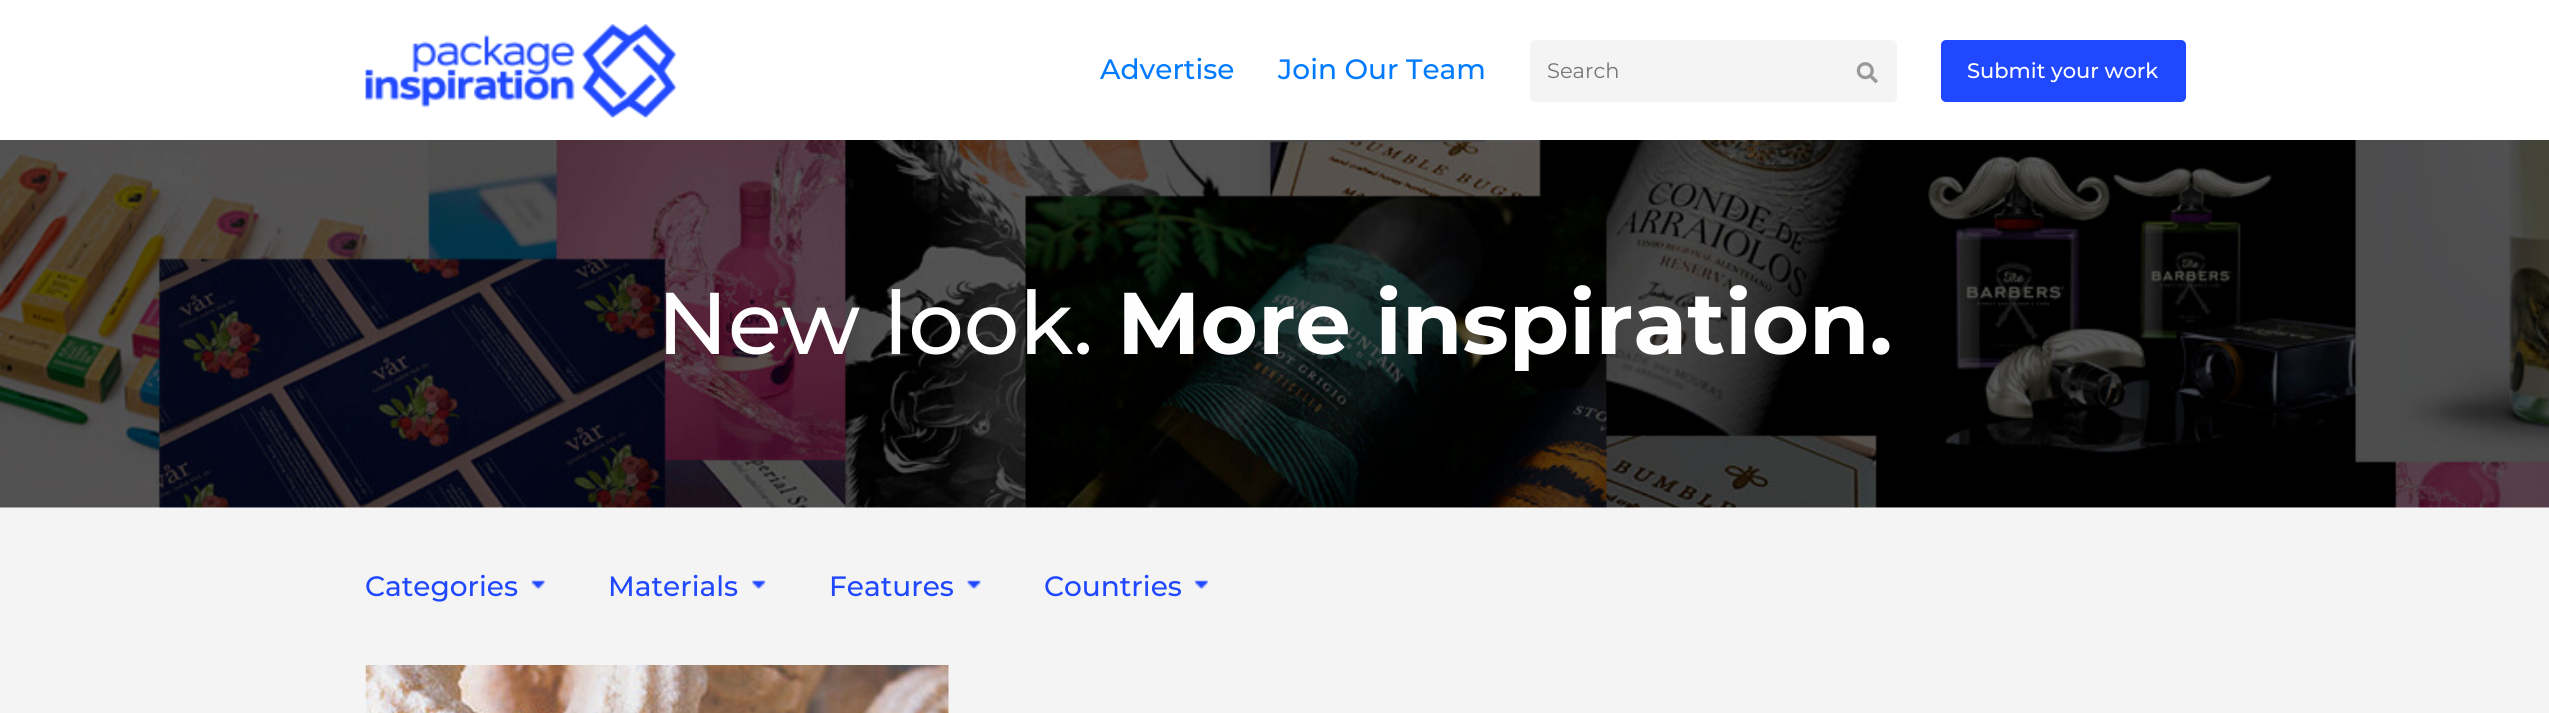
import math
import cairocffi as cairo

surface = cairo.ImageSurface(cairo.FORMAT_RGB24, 2549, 713)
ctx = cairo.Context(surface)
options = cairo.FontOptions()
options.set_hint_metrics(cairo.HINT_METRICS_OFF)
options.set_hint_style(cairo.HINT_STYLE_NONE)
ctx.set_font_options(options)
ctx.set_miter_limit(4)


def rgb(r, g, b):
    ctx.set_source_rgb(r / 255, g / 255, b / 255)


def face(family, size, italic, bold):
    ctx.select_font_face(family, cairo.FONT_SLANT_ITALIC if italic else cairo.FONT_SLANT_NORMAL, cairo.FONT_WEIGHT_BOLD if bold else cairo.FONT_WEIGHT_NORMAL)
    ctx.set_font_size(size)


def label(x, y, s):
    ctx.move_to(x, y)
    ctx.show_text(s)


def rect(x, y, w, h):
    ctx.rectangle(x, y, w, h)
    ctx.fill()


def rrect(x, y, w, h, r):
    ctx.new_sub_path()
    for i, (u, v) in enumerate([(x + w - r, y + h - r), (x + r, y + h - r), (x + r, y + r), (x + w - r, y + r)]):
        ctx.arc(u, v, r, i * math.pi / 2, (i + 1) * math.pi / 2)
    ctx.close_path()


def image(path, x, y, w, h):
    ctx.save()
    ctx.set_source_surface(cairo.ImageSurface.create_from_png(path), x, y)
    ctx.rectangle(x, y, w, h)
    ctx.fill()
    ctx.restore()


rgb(255, 255, 255)
ctx.paint()
image('image0.png', 365, 24, 311, 94)
face('Montserrat Medium', 28, 0, 0)
rgb(0, 123, 255)
label(1100, 79, 'Advertise')
label(1278, 79, 'Join Our Team')
rgb(244, 244, 244)
rrect(1530, 40, 367, 62, 5)
ctx.fill()
face('Montserrat', 21, 0, 0)
rgb(117, 117, 117)
label(1547, 78, 'Search')
image('image1.png', 1856, 62, 22, 22)
rgb(32, 72, 254)
rrect(1941, 40, 245, 62, 5)
ctx.fill()
face('Montserrat Medium', 21, 0, 0)
rgb(254, 254, 254)
label(1967, 78, 'Submit your work')
image('image2.png', 0, 140, 2549, 368)
face('Montserrat Medium', 87.5, 0, 0)
label(657, 354, 'New look.')
face('Montserrat', 87.5, 0, 1)
label(1117, 354, 'More inspiration.')
rgb(244, 244, 244)
rect(0, 508, 2549, 205)
face('Montserrat Medium', 28, 0, 0)
rgb(32, 72, 254)
label(365, 596, 'Categories')
image('image3.png', 531, 580, 14, 9)
label(608, 596, 'Materials')
image('image4.png', 752, 580, 14, 9)
label(829, 596, 'Features')
image('image5.png', 967, 580, 14, 9)
label(1044, 596, 'Countries')
image('image6.png', 1194, 580, 14, 9)
image('image7.png', 365, 665, 584, 48)
surface.write_to_png('render.png')
